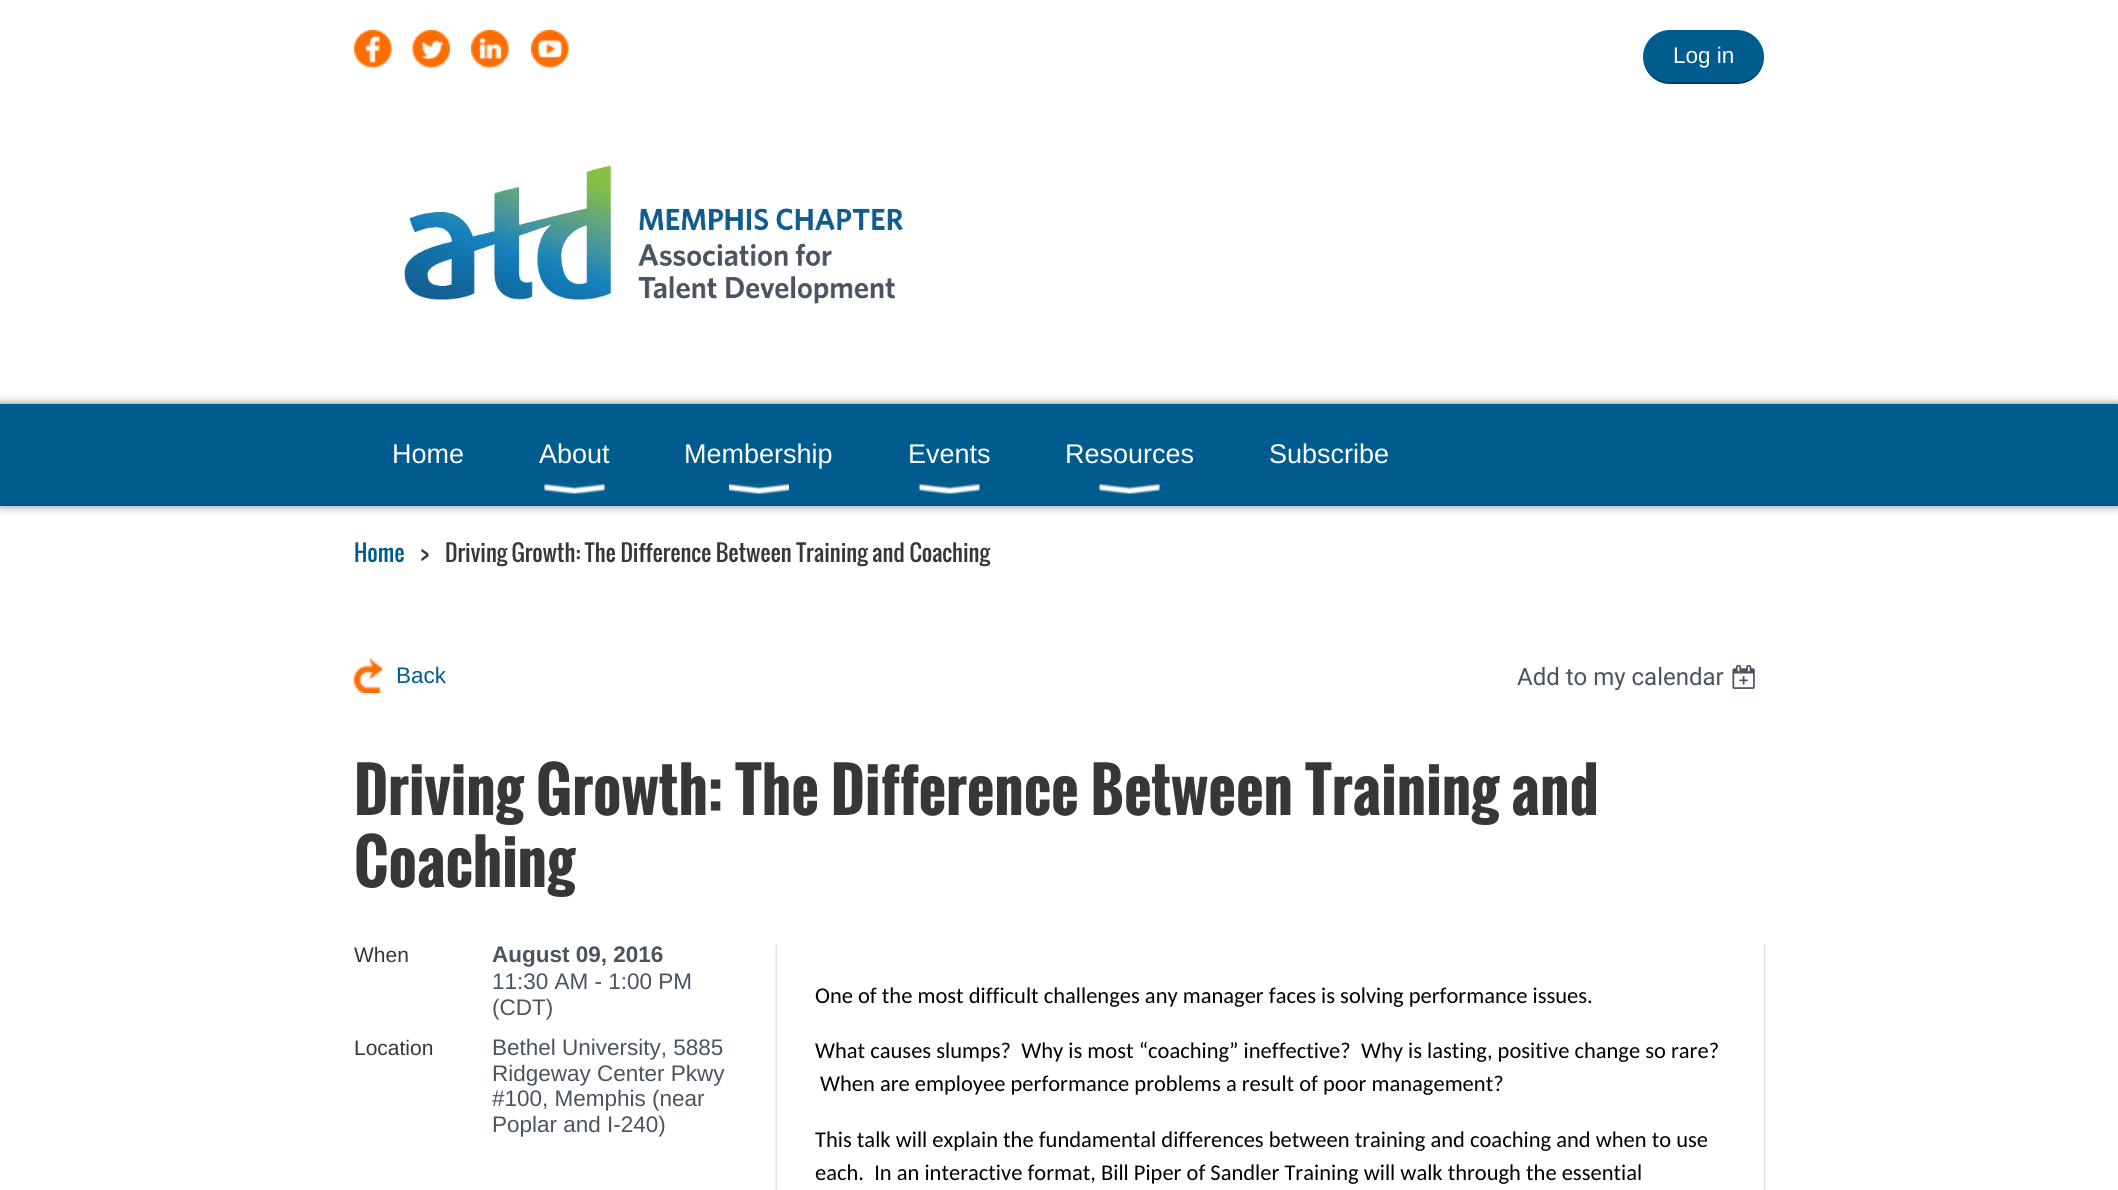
import math
import cairocffi as cairo

surface = cairo.ImageSurface(cairo.FORMAT_RGB24, 2118, 1190)
ctx = cairo.Context(surface)
options = cairo.FontOptions()
options.set_hint_metrics(cairo.HINT_METRICS_OFF)
options.set_hint_style(cairo.HINT_STYLE_NONE)
ctx.set_font_options(options)
ctx.set_miter_limit(4)


def rgb(r, g, b):
    ctx.set_source_rgb(r / 255, g / 255, b / 255)


def face(family, size, italic, bold):
    ctx.select_font_face(family, cairo.FONT_SLANT_ITALIC if italic else cairo.FONT_SLANT_NORMAL, cairo.FONT_WEIGHT_BOLD if bold else cairo.FONT_WEIGHT_NORMAL)
    ctx.set_font_size(size)


def label(x, y, s):
    ctx.move_to(x, y)
    ctx.show_text(s)


def rect(x, y, w, h):
    ctx.rectangle(x, y, w, h)
    ctx.fill()


def rrect(x, y, w, h, r):
    ctx.new_sub_path()
    for i, (u, v) in enumerate([(x + w - r, y + h - r), (x + r, y + h - r), (x + r, y + r), (x + w - r, y + r)]):
        ctx.arc(u, v, r, i * math.pi / 2, (i + 1) * math.pi / 2)
    ctx.close_path()


def soft_shadow(x, y, w, h, r, blur, alpha):
    ctx.push_group_with_content(cairo.CONTENT_ALPHA)
    ctx.set_operator(cairo.OPERATOR_SOURCE)
    for i in range(15, -16, -2):
        e = blur * i / 6
        if min(w, h) + 2 * e > 0:
            ctx.set_source_rgba(0, 0, 0, alpha * math.erfc((i - 1) / 8.5) / 2)
            rrect(x - e, y - e, w + 2 * e, h + 2 * e, max(0, min(r + e + blur * .6, min(w, h) / 2 + e)))
            ctx.fill()
    ctx.mask(ctx.pop_group())


def image(path, x, y, w, h):
    ctx.save()
    ctx.set_source_surface(cairo.ImageSurface.create_from_png(path), x, y)
    ctx.rectangle(x, y, w, h)
    ctx.fill()
    ctx.restore()


rgb(255, 255, 255)
ctx.paint()
image('image0.png', 354, 30, 38, 38)
image('image1.png', 412, 30, 38, 38)
image('image2.png', 471, 30, 38, 38)
image('image3.png', 531, 30, 38, 38)
rgb(0, 91, 142)
rrect(1643, 30, 121, 54, 27)
ctx.fill()
ctx.set_source_rgba(0, 0, 0, 0.3)
ctx.new_path()
ctx.move_to(1645, 68)
ctx.curve_to(1650, 77, 1659, 84, 1670, 84)
ctx.line_to(1737, 84)
ctx.curve_to(1752, 84, 1764, 72, 1764, 57)
ctx.line_to(1764, 56)
ctx.curve_to(1764, 70, 1752, 82, 1737, 82)
ctx.line_to(1670, 82)
ctx.curve_to(1660, 82, 1650, 76, 1645, 68)
ctx.close_path()
ctx.fill()
face('Liberation Sans', 22.5, 0, 0)
rgb(255, 255, 255)
label(1673, 63, 'Log in')
image('image4.png', 404, 165, 499, 139)
rgb(0, 0, 0)
soft_shadow(0, 404, 2118, 102, 0, 4.5, 0.5)
rgb(0, 91, 142)
rect(0, 404, 2118, 102)
face('Liberation Sans', 27, 0, 0)
rgb(255, 255, 255)
label(392, 463, 'Home')
label(539, 463, 'About')
image('image5.png', 544, 484, 61, 10)
label(684, 463, 'Membership')
image('image6.png', 729, 484, 60, 10)
label(908, 463, 'Events')
image('image7.png', 919, 484, 61, 10)
label(1065, 463, 'Resources')
image('image7.png', 1099, 484, 61, 10)
label(1269, 463, 'Subscribe')
face('Oswald', 22.5, 0, 0)
rgb(0, 91, 142)
label(354, 562, 'Home')
rgb(55, 55, 55)
label(420, 562, '>')
label(445, 562, 'Driving Growth: The Difference Between Training and Coaching')
image('image8.png', 354, 658, 29, 35)
face('Liberation Sans', 22.5, 0, 0)
rgb(0, 91, 142)
label(396, 683, 'Back')
face('Roboto', 24, 0, 0)
rgb(74, 84, 95)
label(1517, 685, 'Add to my calendar')
image('image9.png', 1732, 664, 23, 25)
face('Oswald', 60, 0, 1)
rgb(55, 55, 55)
label(354, 815, 'Driving Growth: The Difference Between Training and')
label(354, 887, 'Coaching')
face('Liberation Sans', 21, 0, 0)
label(354, 962, 'When')
face('Liberation Sans', 22.5, 0, 1)
rgb(74, 84, 95)
label(492, 962, 'August 09, 2016')
face('Liberation Sans', 22.5, 0, 0)
label(492, 989, '11:30 AM - 1:00 PM')
label(492, 1015, '(CDT)')
face('Liberation Sans', 21, 0, 0)
rgb(55, 55, 55)
label(354, 1055, 'Location')
face('Liberation Sans', 22.5, 0, 0)
rgb(74, 84, 95)
label(492, 1055, 'Bethel University, 5885')
label(492, 1081, 'Ridgeway Center Pkwy')
label(492, 1106, '#100, Memphis (near')
label(492, 1132, 'Poplar and I-240)')
ctx.save()
ctx.set_fill_rule(cairo.FILL_RULE_EVEN_ODD)
ctx.new_path()
ctx.move_to(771, 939)
ctx.line_to(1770, 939)
ctx.line_to(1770, 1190)
ctx.line_to(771, 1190)
ctx.close_path()
ctx.move_to(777, 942)
ctx.line_to(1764, 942)
ctx.line_to(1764, 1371)
ctx.line_to(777, 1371)
ctx.close_path()
ctx.clip()
rgb(0, 0, 0)
soft_shadow(777, 945, 987, 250, 0, 1.5, 0.3)
ctx.restore()
face('Carlito', 22.5, 0, 0)
rgb(0, 0, 0)
label(815, 1003, 'One of the most difficult challenges any manager faces is solving performance issues.')
label(815, 1058, 'What causes slumps?  Why is most “coaching” ineffective?  Why is lasting, positive change so rare?')
label(820, 1091, 'When are employee performance problems a result of poor management?')
ctx.save()
ctx.rectangle(815, 980, 912, 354)
ctx.clip()
label(815, 1147, 'This talk will explain the fundamental differences between training and coaching and when to use')
ctx.restore()
label(815, 1180, 'each.  In an interactive format, Bill Piper of Sandler Training will walk through the essential')
surface.write_to_png('render.png')
